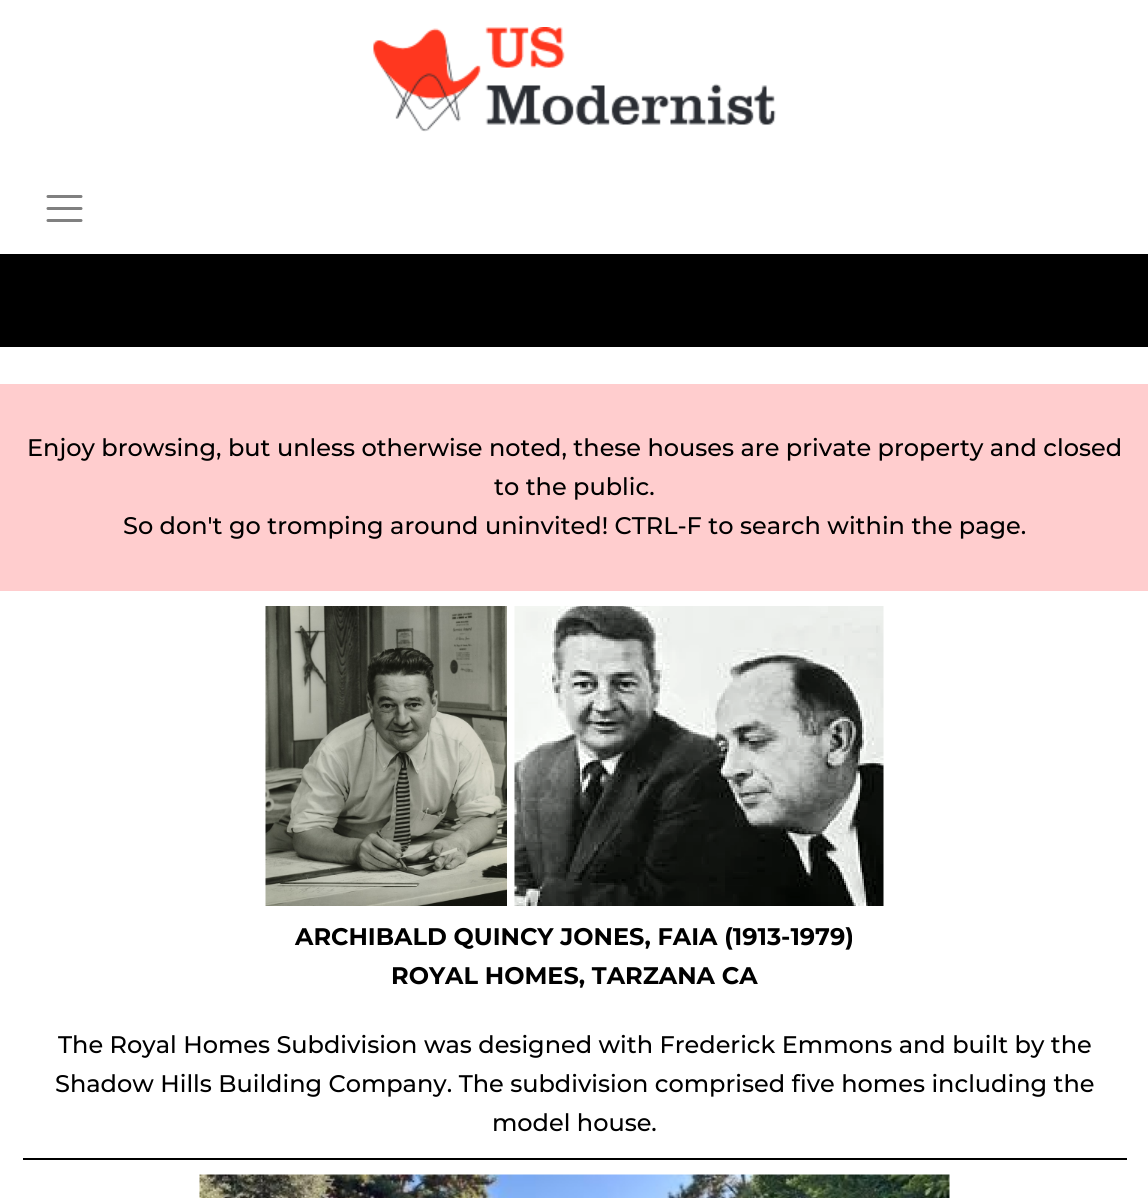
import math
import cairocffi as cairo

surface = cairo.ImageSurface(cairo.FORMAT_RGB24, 1148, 1198)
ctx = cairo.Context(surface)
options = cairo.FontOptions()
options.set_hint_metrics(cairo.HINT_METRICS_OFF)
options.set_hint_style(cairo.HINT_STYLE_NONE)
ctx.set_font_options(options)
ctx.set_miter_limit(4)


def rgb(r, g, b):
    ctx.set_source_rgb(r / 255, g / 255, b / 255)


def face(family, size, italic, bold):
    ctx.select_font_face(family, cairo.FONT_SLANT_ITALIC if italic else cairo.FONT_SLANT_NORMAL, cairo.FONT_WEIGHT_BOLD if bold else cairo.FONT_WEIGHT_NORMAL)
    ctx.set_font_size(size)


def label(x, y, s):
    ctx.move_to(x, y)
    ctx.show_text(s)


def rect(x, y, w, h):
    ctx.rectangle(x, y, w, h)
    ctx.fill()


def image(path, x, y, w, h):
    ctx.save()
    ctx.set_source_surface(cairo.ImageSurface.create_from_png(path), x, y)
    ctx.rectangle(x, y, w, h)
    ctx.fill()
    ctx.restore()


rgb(255, 255, 255)
ctx.paint()
image('image0.png', 373, 27, 403, 105)
ctx.new_path()
ctx.move_to(48, 196.5)
ctx.line_to(81, 196.5)
ctx.move_to(48, 208.5)
ctx.line_to(81, 208.5)
ctx.move_to(48, 220.5)
ctx.line_to(81, 220.5)
rgb(128, 128, 128)
ctx.set_line_width(3)
ctx.set_line_cap(cairo.LINE_CAP_ROUND)
ctx.stroke()
rgb(0, 0, 0)
rect(0, 254, 1148, 93)
rgb(255, 205, 206)
rect(0, 384, 1148, 207)
face('Montserrat Medium', 24, 0, 0)
rgb(0, 0, 0)
label(27, 456, 'Enjoy browsing, but unless otherwise noted, these houses are private property and closed')
label(494, 495, 'to the public.')
label(123, 534, 'So don\'t go tromping around uninvited! CTRL-F to search within the page.')
image('image1.png', 265, 606, 242, 300)
image('image2.png', 514, 606, 370, 300)
face('Montserrat', 24, 0, 1)
label(295, 945, 'ARCHIBALD QUINCY JONES, FAIA (1913-1979)')
label(391, 984, 'ROYAL HOMES, TARZANA CA')
face('Montserrat Medium', 24, 0, 0)
label(58, 1053, 'The Royal Homes Subdivision was designed with Frederick Emmons and built by the')
label(55, 1092, 'Shadow Hills Building Company. The subdivision comprised five homes including the')
label(492, 1131, 'model house.')
rect(23, 1158, 1104, 2)
image('image3.png', 199, 1174, 751, 24)
surface.write_to_png('render.png')
